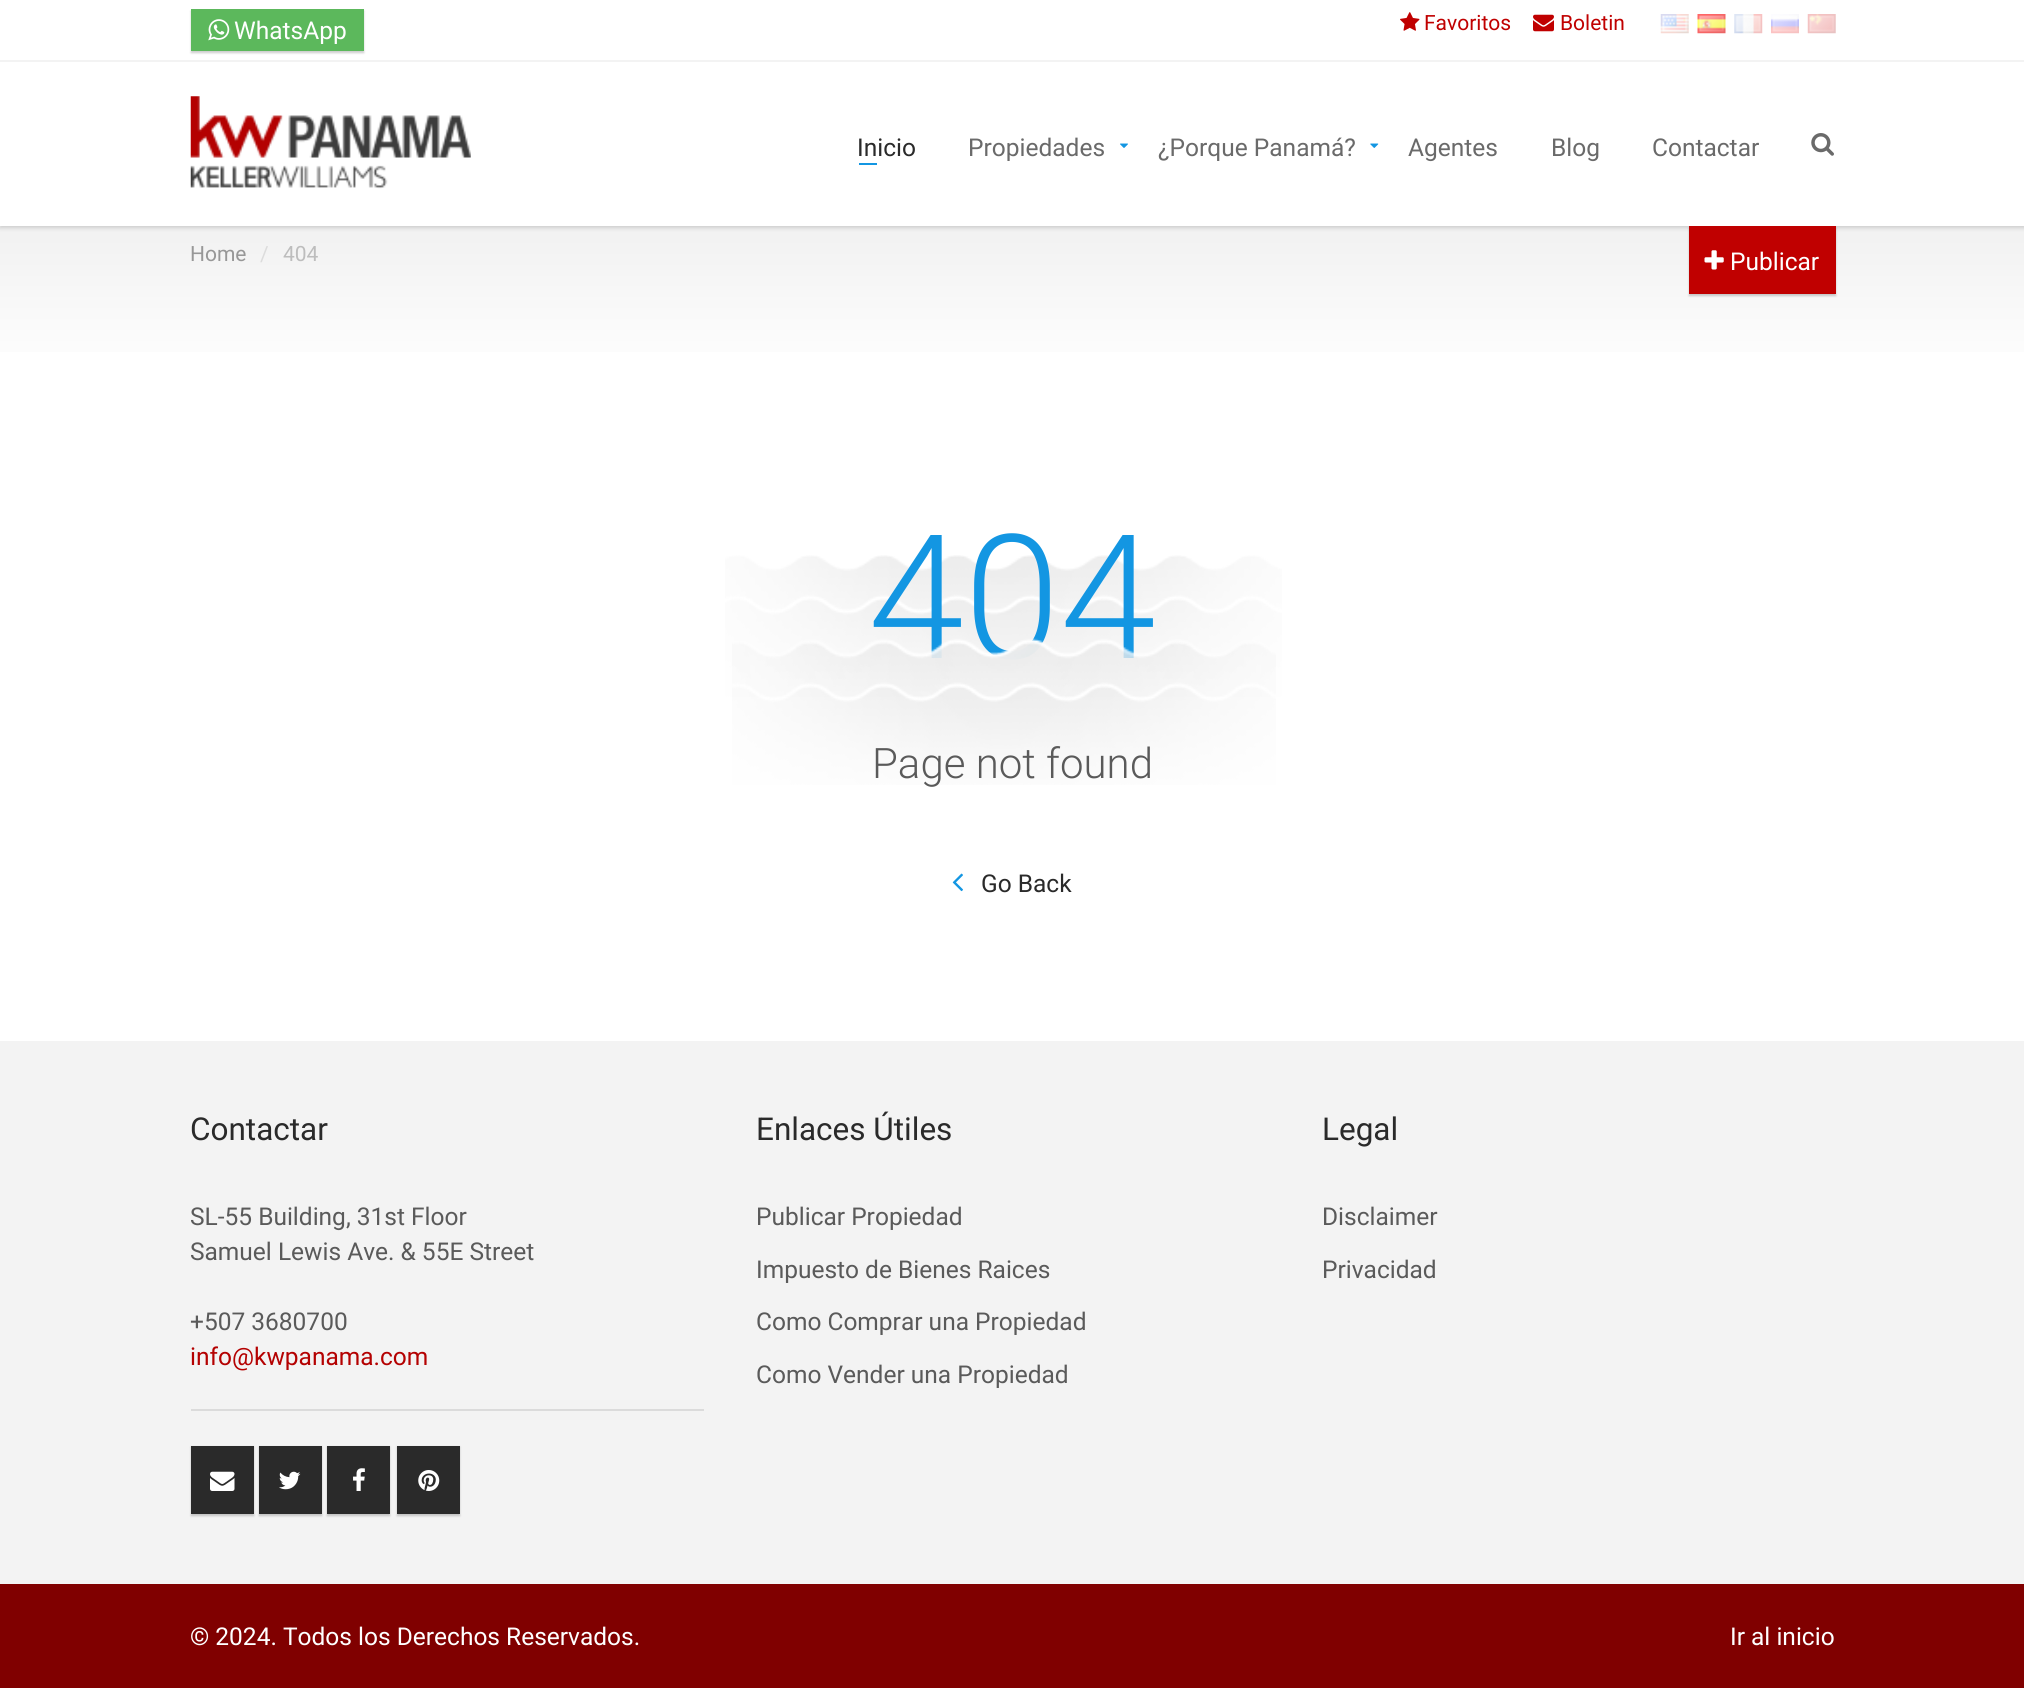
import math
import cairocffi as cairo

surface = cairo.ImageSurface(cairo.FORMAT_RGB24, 2024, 1688)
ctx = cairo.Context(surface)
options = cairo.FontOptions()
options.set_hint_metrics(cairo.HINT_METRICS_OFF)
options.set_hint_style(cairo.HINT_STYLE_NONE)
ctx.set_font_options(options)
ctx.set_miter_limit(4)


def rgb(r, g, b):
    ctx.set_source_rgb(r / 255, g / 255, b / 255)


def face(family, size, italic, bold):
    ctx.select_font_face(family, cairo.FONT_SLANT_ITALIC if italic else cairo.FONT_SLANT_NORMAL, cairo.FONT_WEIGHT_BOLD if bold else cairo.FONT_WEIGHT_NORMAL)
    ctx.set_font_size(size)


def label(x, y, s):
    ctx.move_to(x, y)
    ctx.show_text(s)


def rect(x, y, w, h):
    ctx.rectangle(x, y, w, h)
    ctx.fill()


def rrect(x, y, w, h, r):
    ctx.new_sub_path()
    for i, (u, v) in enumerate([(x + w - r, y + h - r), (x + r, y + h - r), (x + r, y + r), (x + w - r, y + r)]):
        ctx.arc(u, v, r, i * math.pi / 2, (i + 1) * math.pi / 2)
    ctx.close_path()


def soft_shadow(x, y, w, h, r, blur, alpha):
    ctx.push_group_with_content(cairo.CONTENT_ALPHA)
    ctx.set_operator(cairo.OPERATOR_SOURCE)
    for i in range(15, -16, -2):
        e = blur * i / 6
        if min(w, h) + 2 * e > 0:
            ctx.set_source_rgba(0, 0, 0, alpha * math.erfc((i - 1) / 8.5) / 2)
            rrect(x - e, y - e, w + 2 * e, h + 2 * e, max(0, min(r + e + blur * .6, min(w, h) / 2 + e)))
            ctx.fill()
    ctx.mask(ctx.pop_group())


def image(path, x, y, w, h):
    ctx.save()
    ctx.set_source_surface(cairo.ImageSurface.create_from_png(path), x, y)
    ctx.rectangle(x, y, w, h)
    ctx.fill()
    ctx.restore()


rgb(255, 255, 255)
ctx.paint()
gradient = cairo.LinearGradient(1012, 226, 1012, 418)
gradient.add_color_stop_rgba(0, 0.945, 0.945, 0.945, 1)
gradient.add_color_stop_rgba(0.8, 1, 1, 1, 1)
ctx.set_source(gradient)
rect(0, 226, 2024, 126)
rgb(0, 0, 0)
soft_shadow(0, 2, 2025, 226, 0, 2, 0.15)
rgb(255, 255, 255)
rect(0, 0, 2024, 226)
rgb(243, 243, 243)
rect(0, 60, 2024, 2)
rgb(0, 0, 0)
soft_shadow(191, 11, 173, 42, 0, 1, 0.2)
rgb(92, 184, 92)
rect(191, 9, 173, 42)
image('image0.png', 208, 19, 22, 22)
face('Roboto', 24.5, 0, 0)
rgb(255, 255, 255)
label(234, 39, 'WhatsApp')
image('image1.png', 1400, 12, 20, 19)
face('Roboto', 21, 0, 0)
rgb(192, 0, 0)
label(1424, 30, 'Favoritos')
image('image2.png', 1533, 14, 21, 18)
label(1560, 30, 'Boletin')
image('image3.png', 1660, 14, 29, 20)
image('image4.png', 1697, 14, 29, 20)
image('image5.png', 1734, 14, 29, 20)
image('image6.png', 1771, 14, 28, 20)
image('image7.png', 1807, 14, 29, 20)
image('image8.png', 190, 96, 281, 93)
face('Roboto', 24.5, 0, 0)
rgb(42, 42, 42)
label(857, 156, 'Inicio')
rgb(19, 150, 226)
rect(859, 163, 18, 2)
rgb(106, 106, 106)
label(968, 156, 'Propiedades')
image('image9.png', 1120, 143, 8, 5)
label(1158, 156, '¿Porque Panamá?')
image('image10.png', 1370, 143, 9, 5)
label(1408, 156, 'Agentes')
label(1551, 156, 'Blog')
label(1652, 156, 'Contactar')
image('image11.png', 1811, 133, 23, 23)
rgb(0, 0, 0)
soft_shadow(1689, 228, 147, 68, 0, 1, 0.2)
rgb(192, 0, 0)
rect(1689, 226, 147, 68)
image('image12.png', 1704, 250, 20, 20)
rgb(255, 255, 255)
label(1730, 270, 'Publicar')
face('Roboto', 21, 0, 0)
rgb(151, 151, 151)
label(190, 261, 'Home')
rgb(220, 220, 220)
label(260, 261, '/')
rgb(189, 189, 189)
label(283, 261, '404')
image('image13.png', 725, 555, 557, 142)
face('Roboto Light', 173, 0, 0)
rgb(19, 150, 226)
label(868, 658, '404')
image('image14.png', 732, 638, 544, 147)
face('Roboto Light', 42, 0, 0)
rgb(90, 90, 90)
label(872, 778, 'Page not found')
image('image15.png', 952, 873, 11, 19)
face('Roboto', 24.5, 0, 0)
rgb(42, 42, 42)
label(981, 892, 'Go Back')
rgb(243, 243, 243)
rect(0, 1041, 2024, 543)
face('Roboto', 31.5, 0, 0)
rgb(42, 42, 42)
label(190, 1140, 'Contactar')
face('Roboto', 24.5, 0, 0)
rgb(90, 90, 90)
label(190, 1225, 'SL-55 Building, 31st Floor')
label(190, 1260, 'Samuel Lewis Ave. & 55E Street')
label(190, 1330, '+507 3680700')
rgb(180, 1, 1)
label(190, 1365, 'info@kwpanama.com')
rgb(219, 219, 219)
rect(191, 1409, 513, 2)
rgb(0, 0, 0)
soft_shadow(191, 1447, 63, 69, 0, 1, 0.2)
rgb(42, 42, 42)
rect(191, 1446, 63, 68)
image('image16.png', 210, 1471, 25, 20)
rgb(0, 0, 0)
soft_shadow(259, 1447, 63, 69, 0, 1, 0.2)
rgb(42, 42, 42)
rect(259, 1446, 63, 68)
image('image17.png', 279, 1471, 22, 19)
rgb(0, 0, 0)
soft_shadow(327, 1447, 63, 69, 0, 1, 0.2)
rgb(42, 42, 42)
rect(327, 1446, 63, 68)
image('image18.png', 353, 1468, 12, 23)
rgb(0, 0, 0)
soft_shadow(397, 1447, 63, 69, 0, 1, 0.2)
rgb(42, 42, 42)
rect(397, 1446, 63, 68)
image('image19.png', 418, 1470, 22, 21)
face('Roboto', 31.5, 0, 0)
label(756, 1140, 'Enlaces Útiles')
face('Roboto', 24.5, 0, 0)
rgb(90, 90, 90)
label(756, 1225, 'Publicar Propiedad')
label(756, 1278, 'Impuesto de Bienes Raices')
label(756, 1330, 'Como Comprar una Propiedad')
label(756, 1383, 'Como Vender una Propiedad')
face('Roboto', 31.5, 0, 0)
rgb(42, 42, 42)
label(1322, 1140, 'Legal')
face('Roboto', 24.5, 0, 0)
rgb(90, 90, 90)
label(1322, 1225, 'Disclaimer')
label(1322, 1278, 'Privacidad')
rgb(128, 0, 0)
rect(0, 1584, 2024, 104)
rgb(255, 255, 255)
label(190, 1645, '© 2024. Todos los Derechos Reservados.')
label(1730, 1645, 'Ir al inicio')
surface.write_to_png('render.png')
